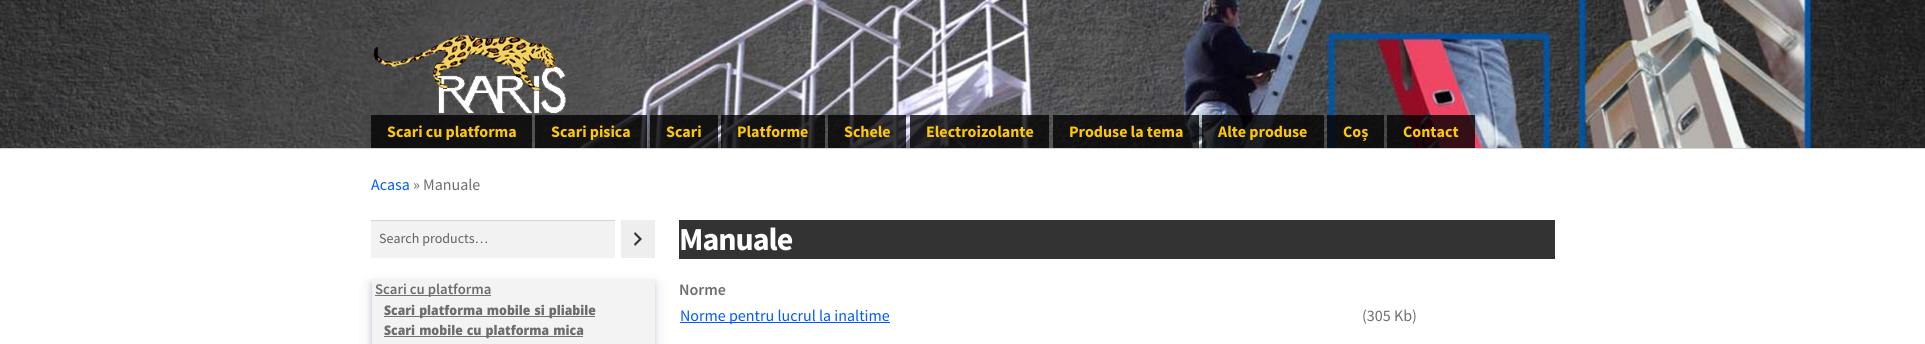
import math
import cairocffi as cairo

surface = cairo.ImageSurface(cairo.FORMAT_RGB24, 1925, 344)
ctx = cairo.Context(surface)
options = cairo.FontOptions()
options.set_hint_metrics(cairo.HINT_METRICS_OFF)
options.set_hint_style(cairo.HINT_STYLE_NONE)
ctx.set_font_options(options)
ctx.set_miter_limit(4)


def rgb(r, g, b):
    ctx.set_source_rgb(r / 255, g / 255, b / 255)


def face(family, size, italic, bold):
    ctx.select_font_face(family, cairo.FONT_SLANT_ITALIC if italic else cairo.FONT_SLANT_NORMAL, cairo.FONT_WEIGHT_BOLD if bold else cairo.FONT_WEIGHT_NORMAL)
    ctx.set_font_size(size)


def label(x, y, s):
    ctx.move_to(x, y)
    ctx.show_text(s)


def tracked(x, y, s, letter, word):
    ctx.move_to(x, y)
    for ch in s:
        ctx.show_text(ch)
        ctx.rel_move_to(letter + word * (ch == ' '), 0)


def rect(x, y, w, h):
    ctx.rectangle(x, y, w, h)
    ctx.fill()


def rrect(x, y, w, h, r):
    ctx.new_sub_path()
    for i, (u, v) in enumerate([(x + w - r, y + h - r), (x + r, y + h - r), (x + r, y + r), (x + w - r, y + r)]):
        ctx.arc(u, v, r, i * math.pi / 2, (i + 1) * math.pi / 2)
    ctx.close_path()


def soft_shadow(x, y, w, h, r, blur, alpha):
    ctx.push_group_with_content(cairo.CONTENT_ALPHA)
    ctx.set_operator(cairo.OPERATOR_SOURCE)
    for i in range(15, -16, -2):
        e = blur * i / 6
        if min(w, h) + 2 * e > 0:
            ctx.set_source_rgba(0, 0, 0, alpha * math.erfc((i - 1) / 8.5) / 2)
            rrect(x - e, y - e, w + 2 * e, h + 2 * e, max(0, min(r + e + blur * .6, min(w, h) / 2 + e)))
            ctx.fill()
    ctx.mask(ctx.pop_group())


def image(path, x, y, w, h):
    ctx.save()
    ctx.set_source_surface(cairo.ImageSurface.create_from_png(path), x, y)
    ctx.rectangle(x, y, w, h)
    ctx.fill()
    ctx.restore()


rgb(255, 255, 255)
ctx.paint()
image('image0.png', 0, 0, 1925, 148)
rgb(214, 214, 214)
rect(0, 148, 1925, 1)
image('image1.png', 373, 34, 193, 80)
ctx.set_source_rgba(0, 0, 0, 0.78)
rect(371, 115, 161, 33)
face('Source Sans Pro', 16, 0, 1)
rgb(255, 200, 0)
label(387, 137, 'Scari cu platforma')
ctx.set_source_rgba(0, 0, 0, 0.78)
rect(535, 115, 112, 33)
rgb(255, 200, 0)
label(551, 137, 'Scari pisica')
ctx.set_source_rgba(0, 0, 0, 0.78)
rect(650, 115, 68, 33)
rgb(255, 200, 0)
label(666, 137, 'Scari')
ctx.set_source_rgba(0, 0, 0, 0.78)
rect(721, 115, 104, 33)
rgb(255, 200, 0)
label(737, 137, 'Platforme')
ctx.set_source_rgba(0, 0, 0, 0.78)
rect(828, 115, 78, 33)
rgb(255, 200, 0)
label(844, 137, 'Schele')
ctx.set_source_rgba(0, 0, 0, 0.78)
rect(910, 115, 139, 33)
rgb(255, 200, 0)
label(926, 137, 'Electroizolante')
ctx.set_source_rgba(0, 0, 0, 0.78)
rect(1053, 115, 146, 33)
rgb(255, 200, 0)
label(1069, 137, 'Produse la tema')
ctx.set_source_rgba(0, 0, 0, 0.78)
rect(1202, 115, 122, 33)
rgb(255, 200, 0)
label(1218, 137, 'Alte produse')
ctx.set_source_rgba(0, 0, 0, 0.78)
rect(1327, 115, 57, 33)
rgb(255, 200, 0)
label(1343, 137, 'Coș')
ctx.set_source_rgba(0, 0, 0, 0.78)
rect(1387, 115, 88, 33)
rgb(255, 200, 0)
label(1403, 137, 'Contact')
face('Source Sans Pro', 16, 0, 0)
rgb(0, 89, 255)
label(371, 190, 'Acasa')
rgb(109, 109, 109)
label(413, 190, '» Manuale')
rgb(242, 242, 242)
rect(371, 221, 244, 37)
rgb(212, 212, 212)
rect(371, 220, 244, 1)
face('Source Sans Pro', 14, 0, 0)
rgb(97, 97, 97)
label(379, 243, 'Search products…')
rgb(238, 238, 238)
rect(621, 220, 34, 38)
image('image2.png', 634, 232, 8, 14)
rgb(93, 100, 148)
soft_shadow(371, 282, 284, 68, 0, 2, 0.2)
rgb(37, 44, 97)
soft_shadow(371, 285, 284, 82, 0, 7.5, 0.15)
rgb(243, 243, 243)
rect(372, 280, 283, 64)
rgb(114, 114, 114)
rect(375, 295, 116, 1)
face('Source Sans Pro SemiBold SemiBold', 14.75, 0, 0)
rgb(109, 109, 109)
label(375, 294, 'Scari cu platforma')
rgb(114, 114, 114)
rect(384, 316, 211, 1)
face('Noto Sans Black', 13.25, 0, 0)
rgb(109, 109, 109)
tracked(384, 315, 'Scari platforma mobile si pliabile', 0, 1)
rgb(114, 114, 114)
rect(384, 336, 199, 1)
rgb(109, 109, 109)
tracked(384, 335, 'Scari mobile cu platforma mica', 0, 1)
rgb(51, 51, 51)
rect(679, 220, 876, 39)
face('Source Sans Pro', 32, 0, 1)
rgb(255, 255, 255)
tracked(679, 250, 'Manuale', -1, 0)
face('Source Sans Pro SemiBold SemiBold', 16, 0, 0)
rgb(109, 109, 109)
label(679, 295, 'Norme')
rgb(0, 89, 255)
rect(680, 322, 210, 1)
face('Source Sans Pro', 16, 0, 0)
label(680, 321, 'Norme pentru lucrul la inaltime')
rgb(109, 109, 109)
label(1362, 321, '(305 Kb)')
surface.write_to_png('render.png')
